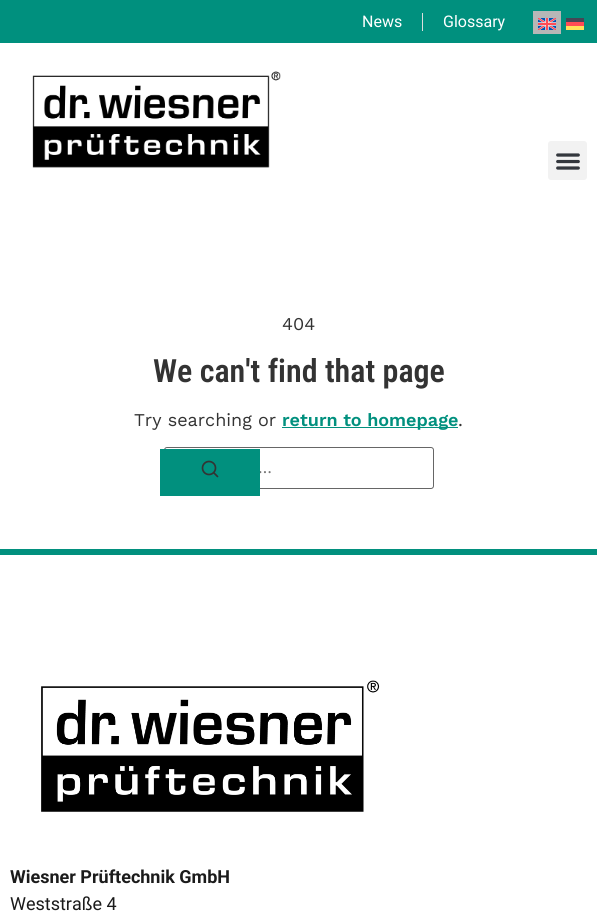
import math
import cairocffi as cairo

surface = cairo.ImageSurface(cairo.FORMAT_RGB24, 597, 914)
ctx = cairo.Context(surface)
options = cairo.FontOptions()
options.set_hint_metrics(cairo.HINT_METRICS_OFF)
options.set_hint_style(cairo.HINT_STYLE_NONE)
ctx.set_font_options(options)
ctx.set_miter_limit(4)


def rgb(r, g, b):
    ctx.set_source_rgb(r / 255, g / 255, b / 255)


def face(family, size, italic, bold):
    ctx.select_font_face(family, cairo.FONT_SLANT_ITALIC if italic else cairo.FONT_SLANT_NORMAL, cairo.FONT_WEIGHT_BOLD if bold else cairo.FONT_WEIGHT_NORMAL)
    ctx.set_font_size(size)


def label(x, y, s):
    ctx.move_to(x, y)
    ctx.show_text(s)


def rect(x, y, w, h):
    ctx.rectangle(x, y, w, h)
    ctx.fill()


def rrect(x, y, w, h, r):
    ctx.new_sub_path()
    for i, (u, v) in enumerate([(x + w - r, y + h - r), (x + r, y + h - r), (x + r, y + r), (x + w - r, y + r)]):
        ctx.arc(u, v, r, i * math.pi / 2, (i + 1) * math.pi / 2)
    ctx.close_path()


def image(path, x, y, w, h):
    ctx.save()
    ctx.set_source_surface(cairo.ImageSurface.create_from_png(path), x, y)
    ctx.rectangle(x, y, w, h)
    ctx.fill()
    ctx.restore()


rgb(255, 255, 255)
ctx.paint()
rgb(0, 144, 126)
rect(0, 0, 597, 43)
face('Roboto', 16, 0, 0)
rgb(255, 255, 255)
label(362, 27, 'News')
rgb(221, 221, 221)
rect(422, 13, 1, 18)
rgb(255, 255, 255)
label(443, 27, 'Glossary')
rgb(183, 183, 183)
rect(533, 11, 28, 23)
image('image0.png', 538, 18, 18, 12)
rgb(70, 70, 85)
rect(566, 18, 18, 4)
rgb(255, 75, 85)
rect(566, 22, 18, 4)
rgb(255, 225, 90)
rect(566, 26, 18, 4)
image('image1.png', 32, 71, 249, 97)
rgb(242, 242, 242)
rrect(548, 141, 39, 39, 3)
ctx.fill()
image('image2.png', 556, 153, 24, 17)
face('Work Sans', 18, 0, 0)
rgb(51, 51, 51)
label(282, 330, '404')
face('Roboto Condensed SemiBold', 32, 0, 0)
label(153, 382, 'We can\'t find that page')
face('Work Sans', 18, 0, 0)
label(134, 426, 'Try searching or')
rgb(1, 144, 126)
rect(282, 427, 176, 1)
face('Work Sans SemiBold', 18, 0, 0)
label(282, 426, 'return to homepage')
face('Work Sans', 18, 0, 0)
rgb(51, 51, 51)
label(458, 426, '.')
rrect(164.5, 447.5, 269, 41, 2.5)
rgb(102, 102, 102)
ctx.set_line_width(1)
ctx.stroke()
face('Work Sans', 16, 0, 0)
rgb(117, 117, 117)
label(258, 473, '…')
rgb(1, 144, 126)
rect(160, 449, 100, 47)
ctx.new_path()
ctx.arc(209, 468, 6.5, 0, 2 * math.pi)
rgb(51, 51, 51)
ctx.set_line_width(1.7)
ctx.stroke()
ctx.new_path()
ctx.move_to(217.5, 476.5)
ctx.line_to(214, 473)
ctx.set_line_cap(cairo.LINE_CAP_ROUND)
ctx.set_line_join(cairo.LINE_JOIN_ROUND)
ctx.stroke()
rgb(1, 144, 126)
rect(0, 549, 597, 6)
image('image3.png', 41, 680, 339, 132)
face('Roboto', 18, 0, 1)
rgb(27, 27, 27)
label(10, 883, 'Wiesner Prüftechnik GmbH')
face('Roboto', 18, 0, 0)
label(10, 910, 'Weststraße 4')
surface.write_to_png('render.png')
